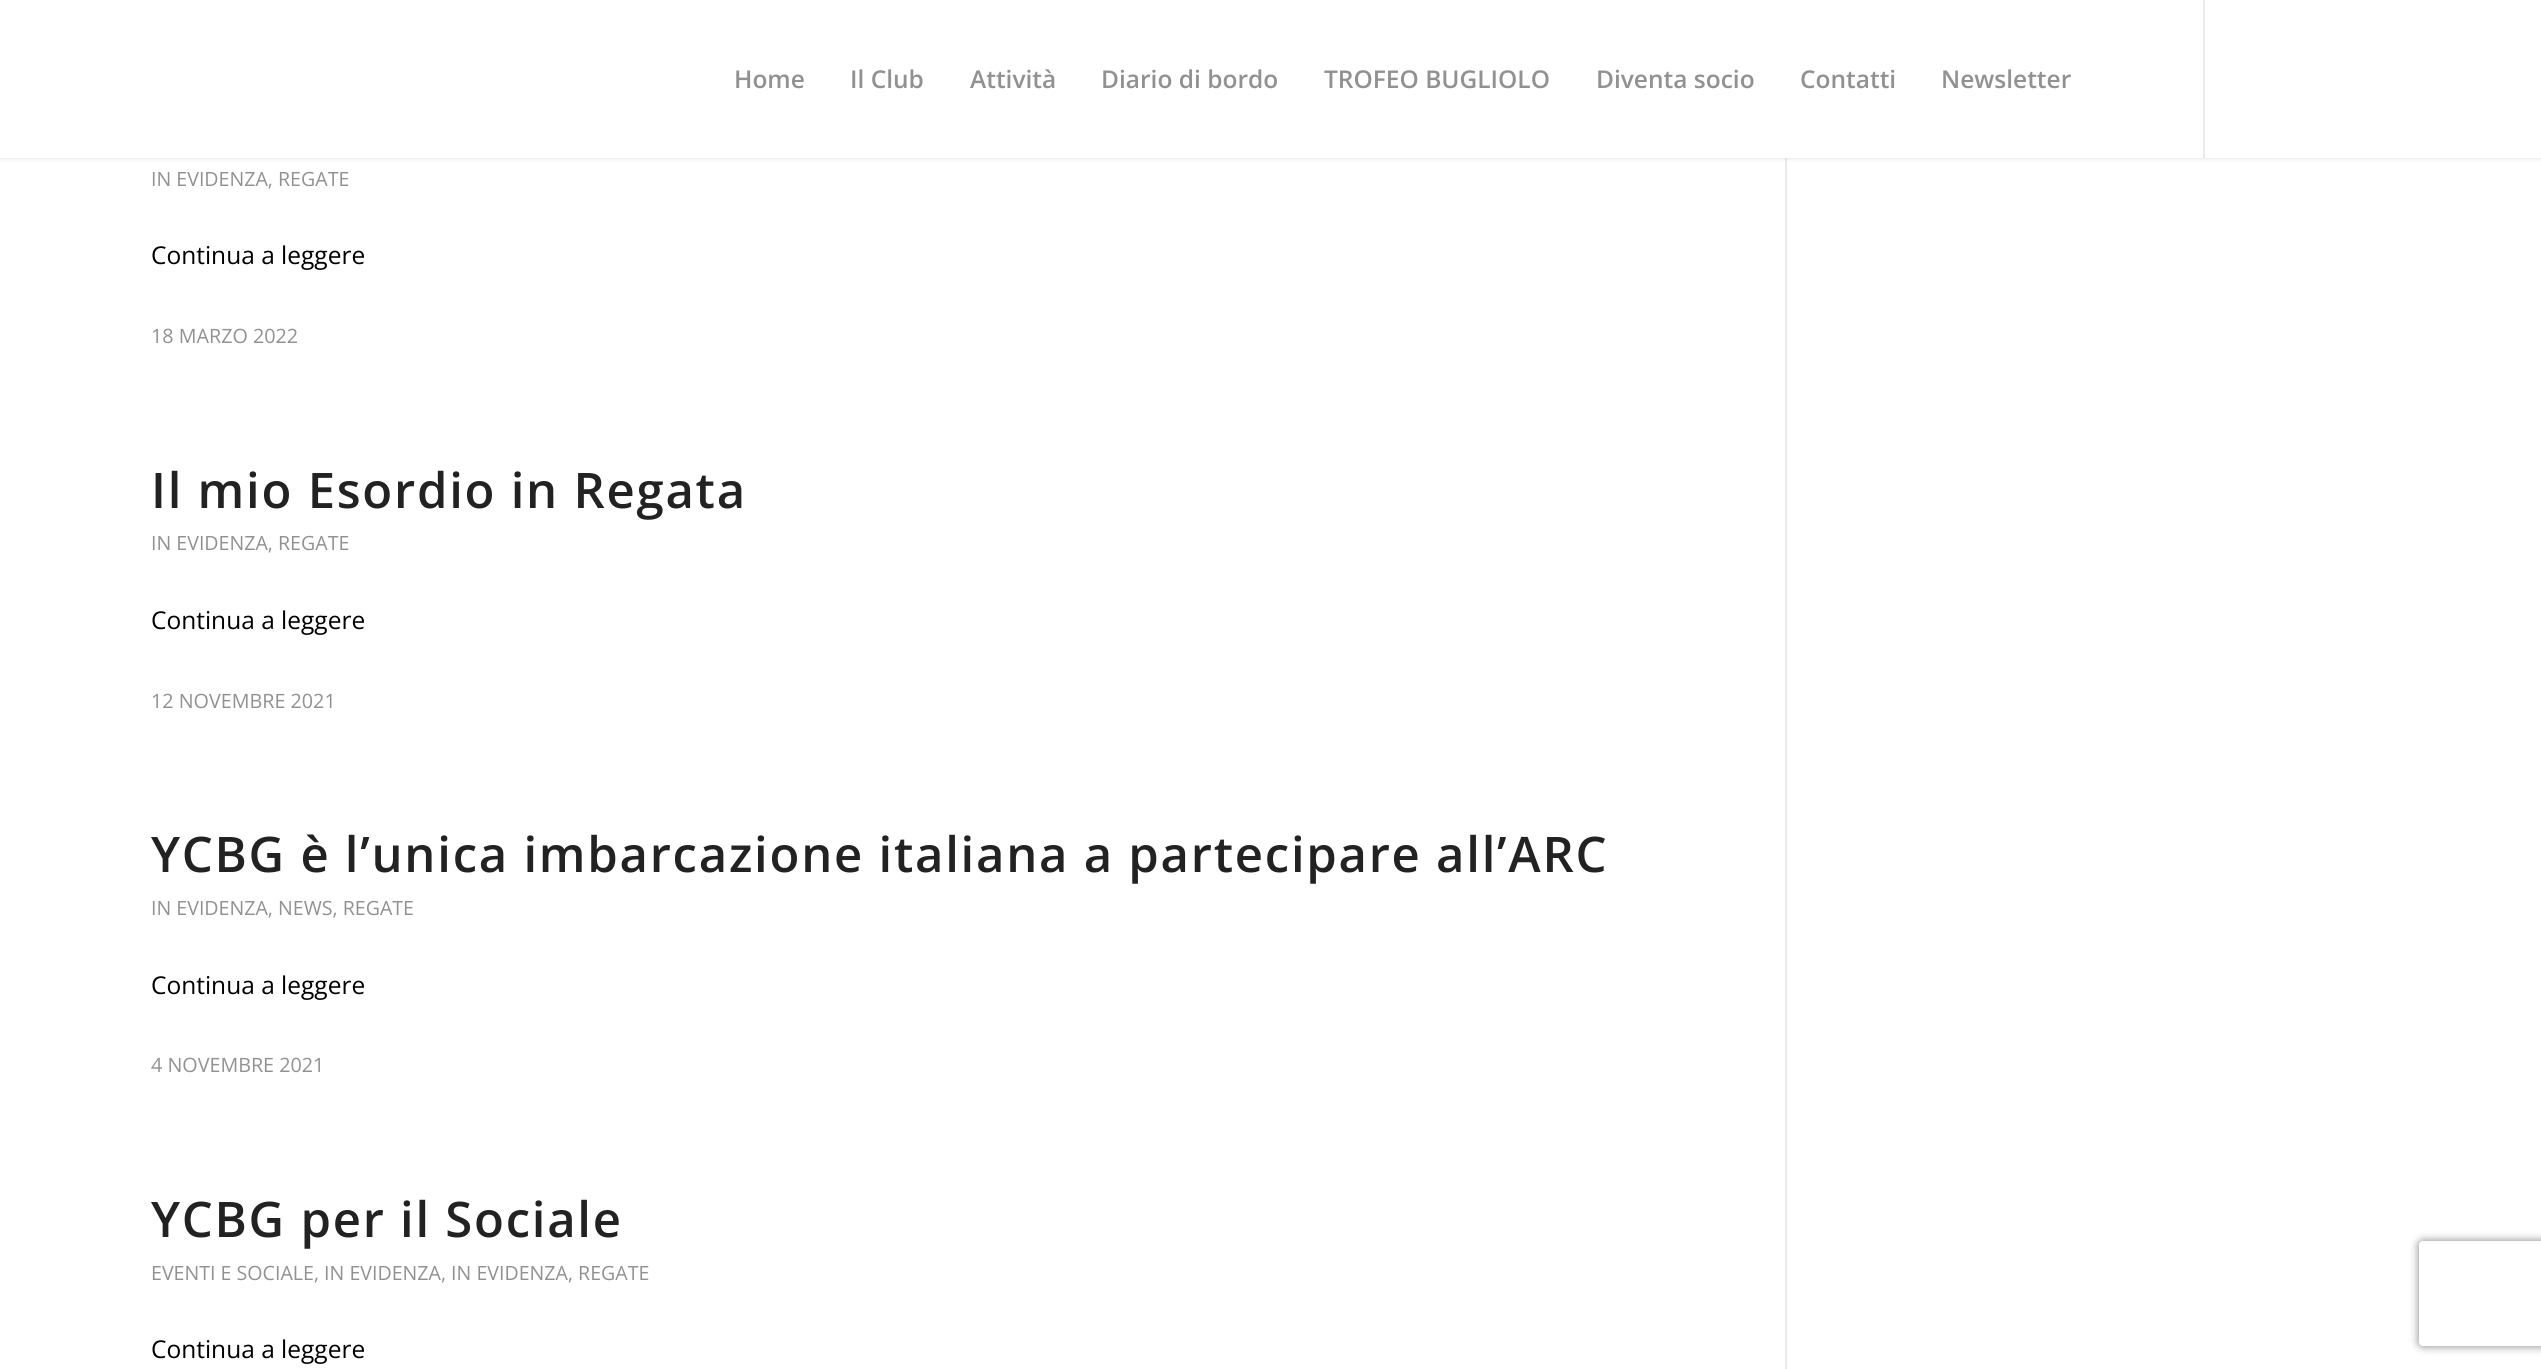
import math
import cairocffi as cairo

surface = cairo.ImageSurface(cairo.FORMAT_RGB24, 2541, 1369)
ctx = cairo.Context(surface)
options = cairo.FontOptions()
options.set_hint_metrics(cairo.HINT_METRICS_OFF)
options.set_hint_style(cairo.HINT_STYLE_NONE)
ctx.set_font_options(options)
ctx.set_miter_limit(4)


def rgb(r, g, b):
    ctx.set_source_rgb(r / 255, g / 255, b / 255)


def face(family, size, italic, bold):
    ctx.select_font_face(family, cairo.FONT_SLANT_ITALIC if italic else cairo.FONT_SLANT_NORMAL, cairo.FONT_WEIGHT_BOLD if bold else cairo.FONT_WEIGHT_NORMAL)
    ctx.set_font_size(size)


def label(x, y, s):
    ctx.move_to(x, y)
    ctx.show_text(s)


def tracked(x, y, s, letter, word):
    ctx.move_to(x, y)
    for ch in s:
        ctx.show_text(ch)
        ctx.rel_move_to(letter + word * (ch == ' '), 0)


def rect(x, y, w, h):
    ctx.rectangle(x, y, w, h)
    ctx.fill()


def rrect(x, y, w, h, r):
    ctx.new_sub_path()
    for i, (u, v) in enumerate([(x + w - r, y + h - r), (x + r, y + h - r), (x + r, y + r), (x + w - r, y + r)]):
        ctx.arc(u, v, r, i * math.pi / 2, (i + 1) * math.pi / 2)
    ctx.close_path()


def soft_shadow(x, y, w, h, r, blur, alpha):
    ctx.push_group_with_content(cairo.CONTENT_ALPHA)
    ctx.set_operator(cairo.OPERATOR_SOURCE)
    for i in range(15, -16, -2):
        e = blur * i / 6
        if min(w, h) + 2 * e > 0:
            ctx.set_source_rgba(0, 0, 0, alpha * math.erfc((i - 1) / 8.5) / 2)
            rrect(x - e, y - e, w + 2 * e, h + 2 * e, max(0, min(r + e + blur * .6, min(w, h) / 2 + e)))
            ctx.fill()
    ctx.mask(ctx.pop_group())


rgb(255, 255, 255)
ctx.paint()
rgb(235, 235, 235)
rect(1785, 158, 2, 1211)
rgb(0, 0, 0)
soft_shadow(-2, -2, 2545, 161, 0, 2, 0.1)
rgb(255, 255, 255)
rect(0, 0, 2541, 158)
rgb(235, 235, 235)
rect(2203, 0, 2, 158)
face('Open Sans SemiBold', 24.5, 0, 0)
rgb(145, 145, 145)
label(734, 88, 'Home')
label(850, 88, 'Il Club')
label(970, 88, 'Attività')
label(1101, 88, 'Diario di bordo')
label(1324, 88, 'TROFEO BUGLIOLO')
label(1596, 88, 'Diventa socio')
label(1800, 88, 'Contatti')
label(1941, 88, 'Newsletter')
face('Open Sans', 19.6, 0, 0)
label(151, 186, 'IN EVIDENZA, REGATE')
face('Open Sans', 24.5, 0, 0)
rgb(0, 0, 0)
label(151, 264, 'Continua a leggere')
face('Open Sans', 19.75, 0, 0)
rgb(145, 145, 145)
label(151, 343, '18 MARZO 2022')
face('Open Sans SemiBold', 49, 0, 0)
rgb(34, 34, 34)
tracked(151, 508, 'Il mio Esordio in Regata', 1.75, 0)
face('Open Sans', 19.6, 0, 0)
rgb(145, 145, 145)
label(151, 550, 'IN EVIDENZA, REGATE')
face('Open Sans', 24.5, 0, 0)
rgb(0, 0, 0)
label(151, 629, 'Continua a leggere')
face('Open Sans', 19.75, 0, 0)
rgb(145, 145, 145)
label(151, 708, '12 NOVEMBRE 2021')
face('Open Sans SemiBold', 49, 0, 0)
rgb(34, 34, 34)
tracked(151, 872, 'YCBG è l’unica imbarcazione italiana a partecipare all’ARC', 1.75, 0)
face('Open Sans', 19.6, 0, 0)
rgb(145, 145, 145)
label(151, 915, 'IN EVIDENZA, NEWS, REGATE')
face('Open Sans', 24.5, 0, 0)
rgb(0, 0, 0)
label(151, 994, 'Continua a leggere')
face('Open Sans', 19.75, 0, 0)
rgb(145, 145, 145)
label(151, 1072, '4 NOVEMBRE 2021')
face('Open Sans SemiBold', 49, 0, 0)
rgb(34, 34, 34)
tracked(151, 1237, 'YCBG per il Sociale', 1.75, 0)
face('Open Sans', 19.6, 0, 0)
rgb(145, 145, 145)
label(151, 1280, 'EVENTI E SOCIALE, IN EVIDENZA, IN EVIDENZA, REGATE')
face('Open Sans', 24.5, 0, 0)
rgb(0, 0, 0)
label(151, 1358, 'Continua a leggere')
ctx.save()
ctx.set_fill_rule(cairo.FILL_RULE_EVEN_ODD)
ctx.new_path()
ctx.move_to(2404, 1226)
ctx.line_to(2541, 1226)
ctx.line_to(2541, 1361)
ctx.line_to(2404, 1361)
ctx.close_path()
ctx.move_to(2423, 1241)
ctx.line_to(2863, 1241)
ctx.curve_to(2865, 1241, 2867, 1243, 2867, 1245)
ctx.line_to(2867, 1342)
ctx.curve_to(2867, 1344, 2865, 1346, 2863, 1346)
ctx.line_to(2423, 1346)
ctx.curve_to(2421, 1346, 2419, 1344, 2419, 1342)
ctx.line_to(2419, 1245)
ctx.curve_to(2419, 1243, 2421, 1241, 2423, 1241)
ctx.close_path()
ctx.clip()
rgb(128, 128, 128)
soft_shadow(2419, 1241, 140, 105, 4, 4.5, 1)
ctx.restore()
surface.write_to_png('render.png')
